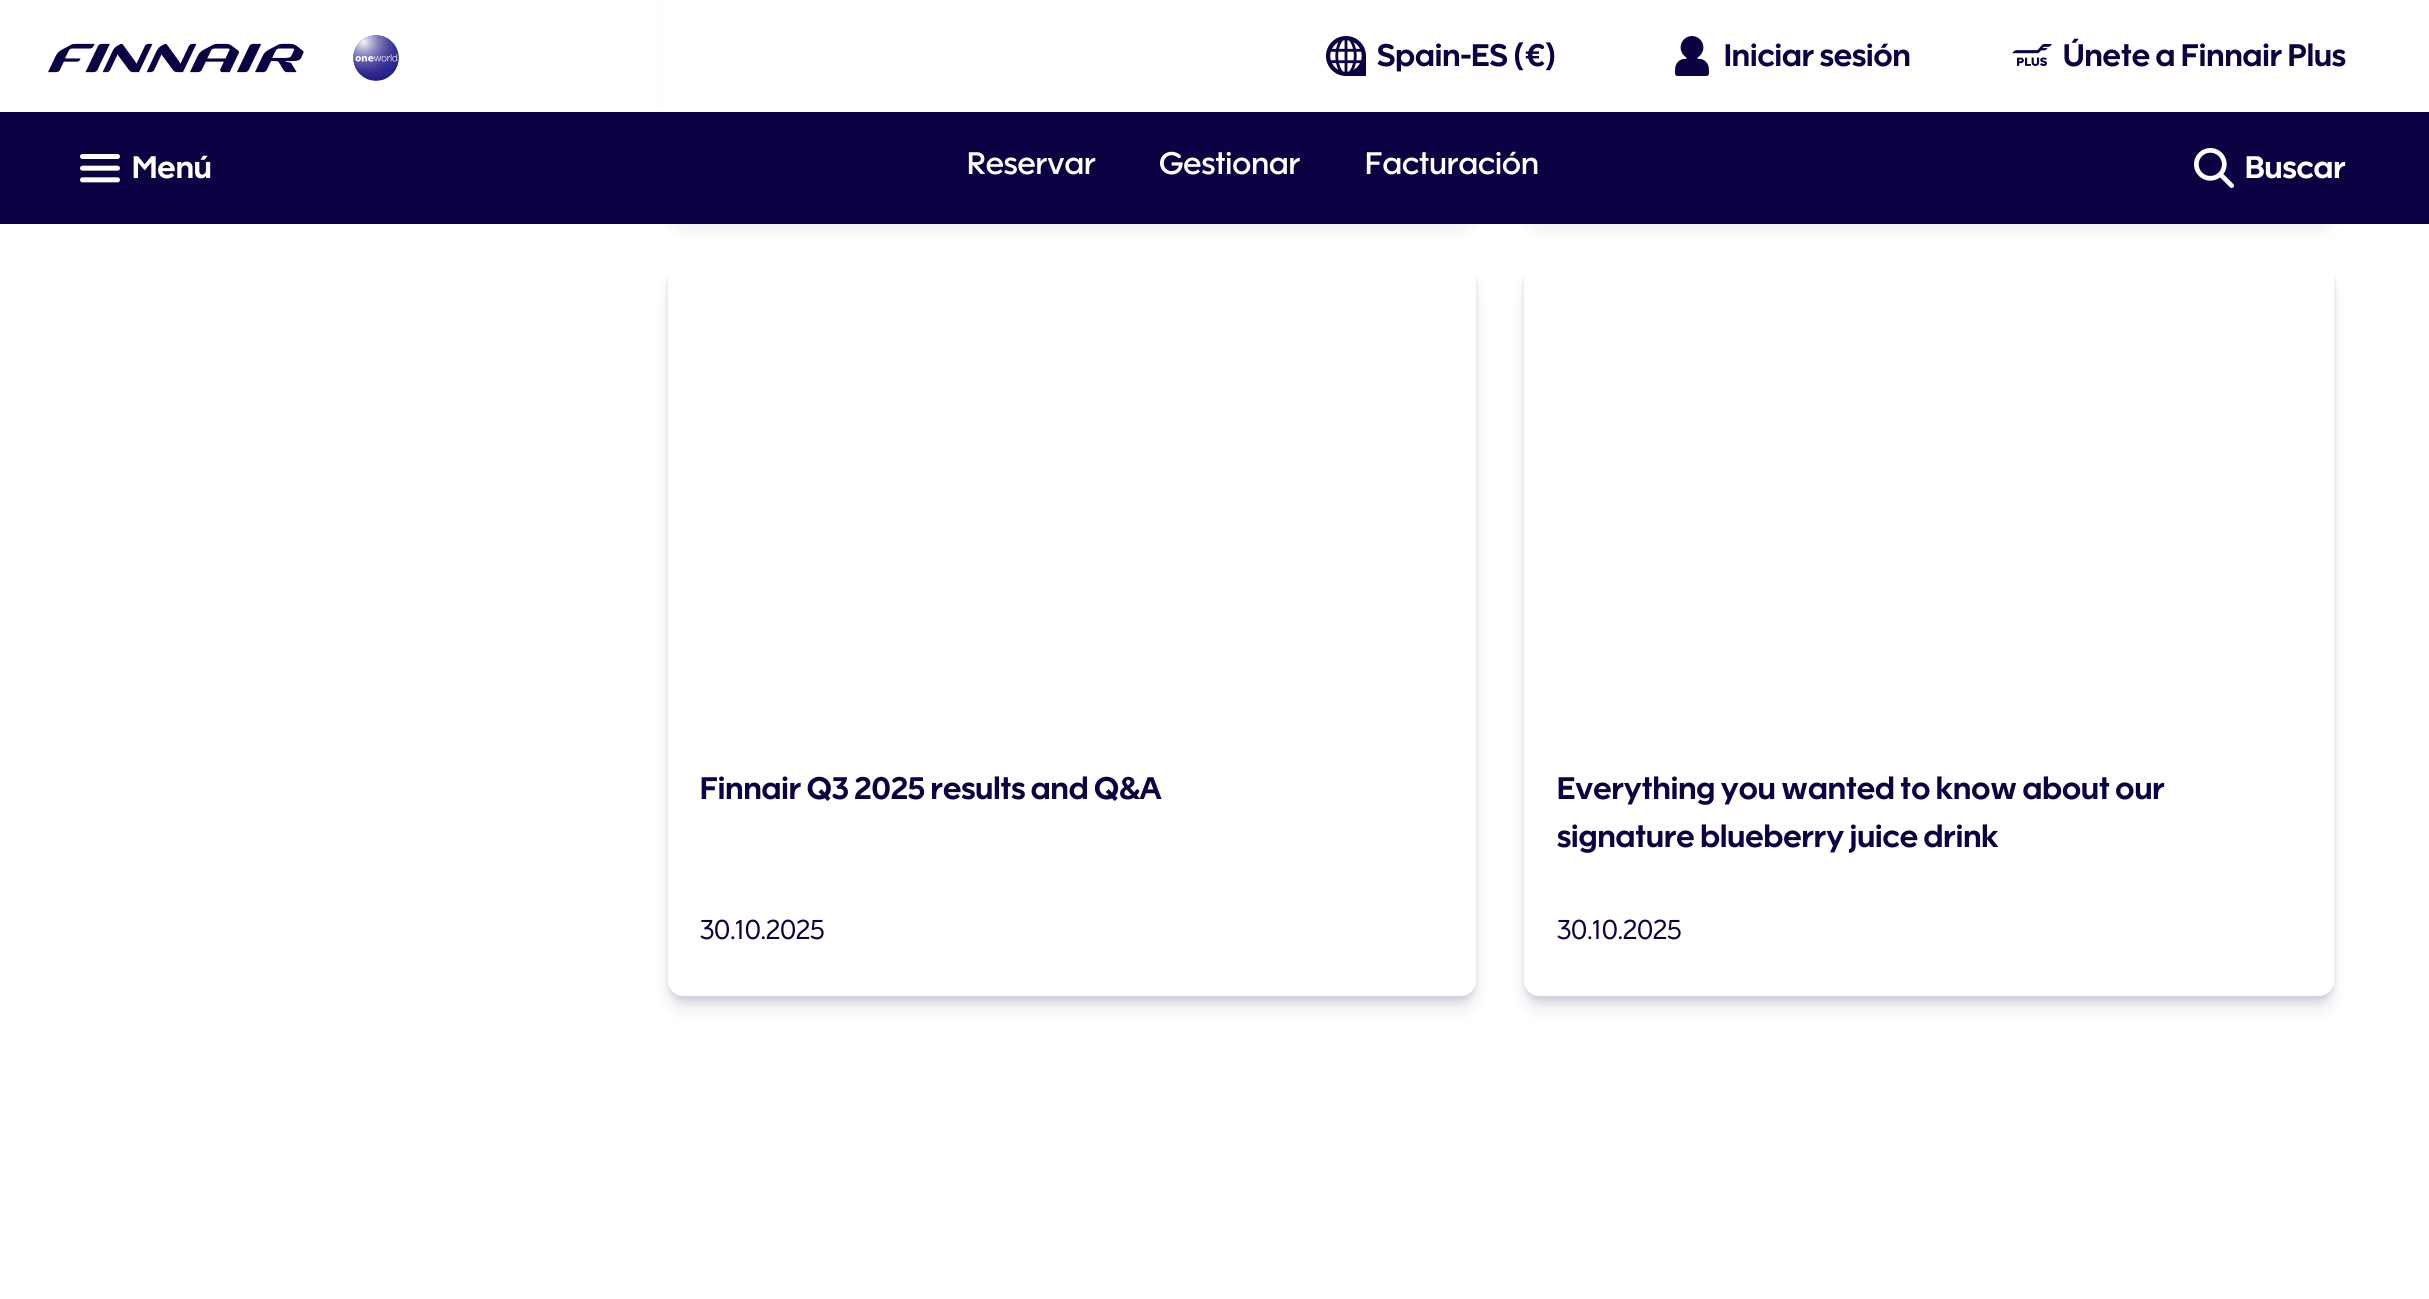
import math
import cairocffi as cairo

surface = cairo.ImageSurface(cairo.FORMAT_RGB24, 2429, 1299)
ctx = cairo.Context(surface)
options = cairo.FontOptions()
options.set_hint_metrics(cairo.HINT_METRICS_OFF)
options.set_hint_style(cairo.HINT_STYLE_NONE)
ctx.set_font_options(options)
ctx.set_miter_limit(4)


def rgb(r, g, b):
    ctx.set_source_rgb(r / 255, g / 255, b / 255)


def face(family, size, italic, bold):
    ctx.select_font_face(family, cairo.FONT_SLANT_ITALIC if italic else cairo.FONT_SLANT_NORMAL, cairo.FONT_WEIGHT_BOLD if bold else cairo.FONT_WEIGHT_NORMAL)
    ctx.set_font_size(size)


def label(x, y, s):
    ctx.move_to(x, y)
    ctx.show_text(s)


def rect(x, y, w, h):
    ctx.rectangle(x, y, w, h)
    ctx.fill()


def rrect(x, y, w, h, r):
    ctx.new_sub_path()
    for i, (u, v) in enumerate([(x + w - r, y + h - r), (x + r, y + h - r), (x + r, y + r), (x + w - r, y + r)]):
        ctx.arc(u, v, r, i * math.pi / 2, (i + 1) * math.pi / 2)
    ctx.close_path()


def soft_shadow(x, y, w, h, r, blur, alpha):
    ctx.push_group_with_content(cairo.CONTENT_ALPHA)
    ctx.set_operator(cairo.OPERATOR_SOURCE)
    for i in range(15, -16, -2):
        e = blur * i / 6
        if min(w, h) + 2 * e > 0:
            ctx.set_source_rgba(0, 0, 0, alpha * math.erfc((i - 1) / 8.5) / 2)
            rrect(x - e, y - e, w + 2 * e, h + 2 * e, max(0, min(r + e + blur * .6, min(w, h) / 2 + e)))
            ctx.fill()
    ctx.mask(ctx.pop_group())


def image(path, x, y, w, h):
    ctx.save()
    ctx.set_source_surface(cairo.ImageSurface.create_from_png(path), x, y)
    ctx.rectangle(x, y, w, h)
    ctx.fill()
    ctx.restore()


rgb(255, 255, 255)
ctx.paint()
rgb(12, 2, 67)
soft_shadow(668, -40, 808, 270, 16, 8, 0.07)
soft_shadow(1524, -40, 810, 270, 16, 8, 0.07)
rgb(255, 255, 255)
rect(660, 0, 1682, 112)
image('image0.png', 48, 43, 256, 30)
image('image1.png', 353, 35, 46, 46)
image('image2.png', 1326, 36, 40, 40)
face('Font', 32, 0, 1)
rgb(12, 2, 67)
label(1377, 66, 'Spain-ES (€)')
image('image3.png', 1675, 36, 34, 40)
label(1724, 66, 'Iniciar sesión')
image('image4.png', 2012, 44, 40, 22)
label(2063, 66, 'Únete a Finnair Plus')
rect(0, 112, 2429, 112)
image('image5.png', 80, 154, 40, 29)
rgb(255, 255, 255)
label(132, 178, 'Menú')
face('Font Medium', 32, 0, 0)
label(967, 174, 'Reservar')
label(1159, 174, 'Gestionar')
label(1365, 174, 'Facturación')
image('image6.png', 2194, 148, 40, 40)
face('Font', 32, 0, 1)
label(2245, 178, 'Buscar')
ctx.save()
ctx.set_fill_rule(cairo.FILL_RULE_EVEN_ODD)
ctx.new_path()
ctx.move_to(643, 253)
ctx.line_to(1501, 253)
ctx.line_to(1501, 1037)
ctx.line_to(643, 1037)
ctx.close_path()
ctx.move_to(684, 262)
ctx.line_to(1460, 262)
ctx.curve_to(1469, 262, 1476, 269, 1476, 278)
ctx.line_to(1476, 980)
ctx.curve_to(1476, 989, 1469, 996, 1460, 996)
ctx.line_to(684, 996)
ctx.curve_to(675, 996, 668, 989, 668, 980)
ctx.line_to(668, 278)
ctx.curve_to(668, 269, 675, 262, 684, 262)
ctx.close_path()
ctx.clip()
rgb(12, 2, 67)
soft_shadow(668, 278, 808, 734, 16, 8, 0.07)
ctx.restore()
ctx.save()
ctx.set_fill_rule(cairo.FILL_RULE_EVEN_ODD)
ctx.new_path()
ctx.move_to(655, 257)
ctx.line_to(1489, 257)
ctx.line_to(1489, 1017)
ctx.line_to(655, 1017)
ctx.close_path()
ctx.move_to(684, 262)
ctx.line_to(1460, 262)
ctx.curve_to(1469, 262, 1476, 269, 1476, 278)
ctx.line_to(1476, 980)
ctx.curve_to(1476, 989, 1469, 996, 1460, 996)
ctx.line_to(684, 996)
ctx.curve_to(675, 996, 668, 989, 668, 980)
ctx.line_to(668, 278)
ctx.curve_to(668, 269, 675, 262, 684, 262)
ctx.close_path()
ctx.clip()
rgb(12, 2, 67)
soft_shadow(668, 270, 808, 734, 16, 4, 0.07)
ctx.restore()
ctx.save()
ctx.set_fill_rule(cairo.FILL_RULE_EVEN_ODD)
ctx.new_path()
ctx.move_to(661, 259)
ctx.line_to(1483, 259)
ctx.line_to(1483, 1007)
ctx.line_to(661, 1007)
ctx.close_path()
ctx.move_to(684, 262)
ctx.line_to(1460, 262)
ctx.curve_to(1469, 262, 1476, 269, 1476, 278)
ctx.line_to(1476, 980)
ctx.curve_to(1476, 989, 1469, 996, 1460, 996)
ctx.line_to(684, 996)
ctx.curve_to(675, 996, 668, 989, 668, 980)
ctx.line_to(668, 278)
ctx.curve_to(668, 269, 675, 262, 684, 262)
ctx.close_path()
ctx.clip()
rgb(12, 2, 67)
soft_shadow(668, 266, 808, 734, 16, 2, 0.07)
ctx.restore()
ctx.new_path()
ctx.move_to(668, 716)
ctx.line_to(1476, 716)
ctx.line_to(1476, 980)
ctx.curve_to(1476, 989, 1469, 996, 1460, 996)
ctx.line_to(684, 996)
ctx.curve_to(675, 996, 668, 989, 668, 980)
ctx.close_path()
ctx.fill()
rgb(12, 2, 67)
label(700, 799, 'Finnair Q3 2025 results and Q&A')
face('Font', 28, 0, 0)
label(700, 939, '30.10.2025')
ctx.save()
ctx.set_fill_rule(cairo.FILL_RULE_EVEN_ODD)
ctx.new_path()
ctx.move_to(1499, 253)
ctx.line_to(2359, 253)
ctx.line_to(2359, 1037)
ctx.line_to(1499, 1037)
ctx.close_path()
ctx.move_to(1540, 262)
ctx.line_to(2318, 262)
ctx.curve_to(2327, 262, 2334, 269, 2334, 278)
ctx.line_to(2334, 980)
ctx.curve_to(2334, 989, 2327, 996, 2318, 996)
ctx.line_to(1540, 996)
ctx.curve_to(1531, 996, 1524, 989, 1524, 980)
ctx.line_to(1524, 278)
ctx.curve_to(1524, 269, 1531, 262, 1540, 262)
ctx.close_path()
ctx.clip()
rgb(12, 2, 67)
soft_shadow(1524, 278, 810, 734, 16, 8, 0.07)
ctx.restore()
ctx.save()
ctx.set_fill_rule(cairo.FILL_RULE_EVEN_ODD)
ctx.new_path()
ctx.move_to(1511, 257)
ctx.line_to(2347, 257)
ctx.line_to(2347, 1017)
ctx.line_to(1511, 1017)
ctx.close_path()
ctx.move_to(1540, 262)
ctx.line_to(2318, 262)
ctx.curve_to(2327, 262, 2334, 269, 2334, 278)
ctx.line_to(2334, 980)
ctx.curve_to(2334, 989, 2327, 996, 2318, 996)
ctx.line_to(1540, 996)
ctx.curve_to(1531, 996, 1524, 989, 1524, 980)
ctx.line_to(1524, 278)
ctx.curve_to(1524, 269, 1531, 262, 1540, 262)
ctx.close_path()
ctx.clip()
rgb(12, 2, 67)
soft_shadow(1524, 270, 810, 734, 16, 4, 0.07)
ctx.restore()
ctx.save()
ctx.set_fill_rule(cairo.FILL_RULE_EVEN_ODD)
ctx.new_path()
ctx.move_to(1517, 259)
ctx.line_to(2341, 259)
ctx.line_to(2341, 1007)
ctx.line_to(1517, 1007)
ctx.close_path()
ctx.move_to(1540, 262)
ctx.line_to(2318, 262)
ctx.curve_to(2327, 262, 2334, 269, 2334, 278)
ctx.line_to(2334, 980)
ctx.curve_to(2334, 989, 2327, 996, 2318, 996)
ctx.line_to(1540, 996)
ctx.curve_to(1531, 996, 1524, 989, 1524, 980)
ctx.line_to(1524, 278)
ctx.curve_to(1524, 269, 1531, 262, 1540, 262)
ctx.close_path()
ctx.clip()
rgb(12, 2, 67)
soft_shadow(1524, 266, 810, 734, 16, 2, 0.07)
ctx.restore()
rgb(255, 255, 255)
ctx.new_path()
ctx.move_to(1524, 716)
ctx.line_to(2334, 716)
ctx.line_to(2334, 980)
ctx.curve_to(2334, 989, 2327, 996, 2318, 996)
ctx.line_to(1540, 996)
ctx.curve_to(1531, 996, 1524, 989, 1524, 980)
ctx.close_path()
ctx.fill()
face('Font', 32, 0, 1)
rgb(12, 2, 67)
label(1557, 799, 'Everything you wanted to know about our')
label(1557, 847, 'signature blueberry juice drink')
face('Font', 28, 0, 0)
label(1557, 939, '30.10.2025')
surface.write_to_png('render.png')
